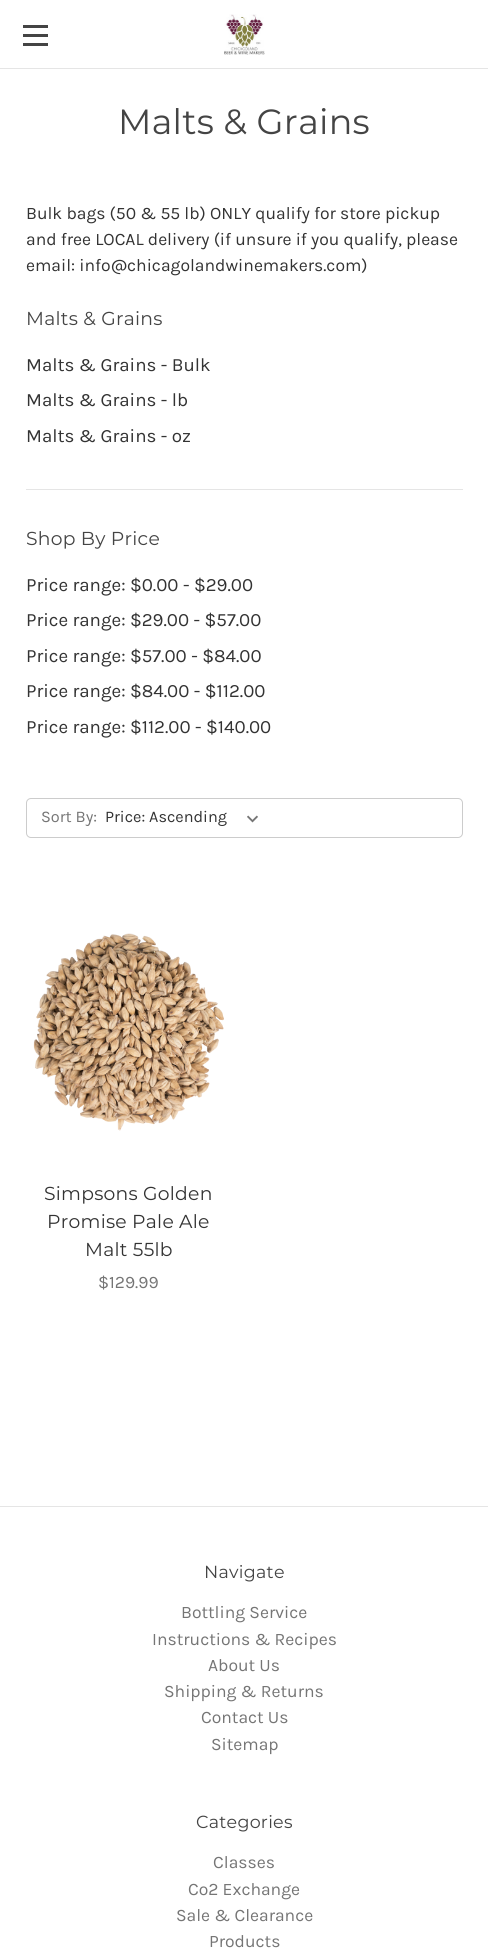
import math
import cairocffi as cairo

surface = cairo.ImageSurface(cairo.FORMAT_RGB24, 488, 1960)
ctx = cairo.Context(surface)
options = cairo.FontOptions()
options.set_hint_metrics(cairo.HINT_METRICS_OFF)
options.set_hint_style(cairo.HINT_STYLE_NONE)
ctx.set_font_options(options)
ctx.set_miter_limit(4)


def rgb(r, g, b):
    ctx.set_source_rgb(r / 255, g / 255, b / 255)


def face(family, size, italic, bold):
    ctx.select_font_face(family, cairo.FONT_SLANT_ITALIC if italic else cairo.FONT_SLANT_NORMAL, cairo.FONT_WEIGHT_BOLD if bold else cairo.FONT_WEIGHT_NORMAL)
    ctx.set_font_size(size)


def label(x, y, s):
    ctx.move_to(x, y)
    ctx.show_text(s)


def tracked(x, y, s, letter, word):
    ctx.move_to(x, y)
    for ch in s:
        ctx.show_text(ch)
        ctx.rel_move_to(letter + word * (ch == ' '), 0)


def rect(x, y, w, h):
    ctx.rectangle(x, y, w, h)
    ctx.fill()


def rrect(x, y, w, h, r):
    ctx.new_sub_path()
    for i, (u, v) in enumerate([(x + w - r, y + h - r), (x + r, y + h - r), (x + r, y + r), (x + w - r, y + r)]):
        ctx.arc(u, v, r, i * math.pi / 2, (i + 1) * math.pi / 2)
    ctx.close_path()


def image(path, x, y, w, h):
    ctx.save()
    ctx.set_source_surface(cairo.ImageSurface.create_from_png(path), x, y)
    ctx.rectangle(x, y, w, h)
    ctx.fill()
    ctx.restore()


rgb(255, 255, 255)
ctx.paint()
rgb(229, 229, 229)
rect(0, 68, 488, 1)
rgb(68, 68, 68)
rect(23, 34, 25, 3)
rect(23, 25, 25, 3)
rect(23, 43, 25, 3)
image('image0.png', 224, 14, 41, 41)
face('Montserrat Thin', 35, 0, 0)
tracked(118, 134, 'Malts & Grains', 0.25, 0)
face('Karla', 17.5, 0, 0)
rgb(51, 51, 51)
label(26, 219, 'Bulk bags (50 & 55 lb) ONLY qualify for store pickup')
label(26, 245, 'and free LOCAL delivery (if unsure if you qualify, please')
label(26, 271, 'email: info@chicagolandwinemakers.com)')
face('Montserrat Thin', 18.75, 0, 0)
rgb(68, 68, 68)
tracked(26, 325, 'Malts & Grains', 0.25, 0)
face('Karla', 18.75, 0, 0)
rgb(51, 51, 51)
label(26, 371, 'Malts & Grains - Bulk')
label(26, 406, 'Malts & Grains - lb')
label(26, 442, 'Malts & Grains - oz')
rgb(229, 229, 229)
rect(26, 489, 437, 1)
face('Montserrat Thin', 18.75, 0, 0)
rgb(68, 68, 68)
tracked(26, 545, 'Shop By Price', 0.25, 0)
face('Karla', 18.75, 0, 0)
rgb(51, 51, 51)
label(26, 591, 'Price range: $0.00 - $29.00')
label(26, 626, 'Price range: $29.00 - $57.00')
label(26, 662, 'Price range: $57.00 - $84.00')
label(26, 697, 'Price range: $84.00 - $112.00')
label(26, 733, 'Price range: $112.00 - $140.00')
rrect(26.5, 798.5, 436, 39, 4.5)
rgb(204, 204, 204)
ctx.set_line_width(1)
ctx.stroke()
face('Karla', 16.25, 0, 0)
rgb(117, 117, 117)
label(41, 822, 'Sort By:')
image('image1.png', 247, 815, 11, 8)
rgb(51, 51, 51)
label(105, 822, 'Price: Ascending')
image('image2.png', 33, 933, 191, 198)
face('Montserrat Thin', 18.75, 0, 0)
tracked(44, 1200, 'Simpsons Golden', 0.25, 0)
tracked(47, 1228, 'Promise Pale Ale', 0.25, 0)
tracked(85, 1256, 'Malt 55lb', 0.25, 0)
face('Karla', 17.5, 0, 0)
rgb(117, 117, 117)
label(98, 1288, '$129.99')
rgb(229, 229, 229)
rect(0, 1506, 488, 1)
face('Montserrat Thin', 17.5, 0, 0)
rgb(68, 68, 68)
tracked(204, 1578, 'Navigate', 0.25, 0)
face('Karla', 17.5, 0, 0)
rgb(117, 117, 117)
label(181, 1618, 'Bottling Service')
label(152, 1645, 'Instructions & Recipes')
label(208, 1671, 'About Us')
label(164, 1697, 'Shipping & Returns')
label(201, 1723, 'Contact Us')
label(211, 1750, 'Sitemap')
face('Montserrat Thin', 17.5, 0, 0)
rgb(68, 68, 68)
tracked(196, 1828, 'Categories', 0.25, 0)
face('Karla', 17.5, 0, 0)
rgb(117, 117, 117)
label(213, 1868, 'Classes')
label(188, 1895, 'Co2 Exchange')
label(176, 1921, 'Sale & Clearance')
label(209, 1947, 'Products')
surface.write_to_png('render.png')
